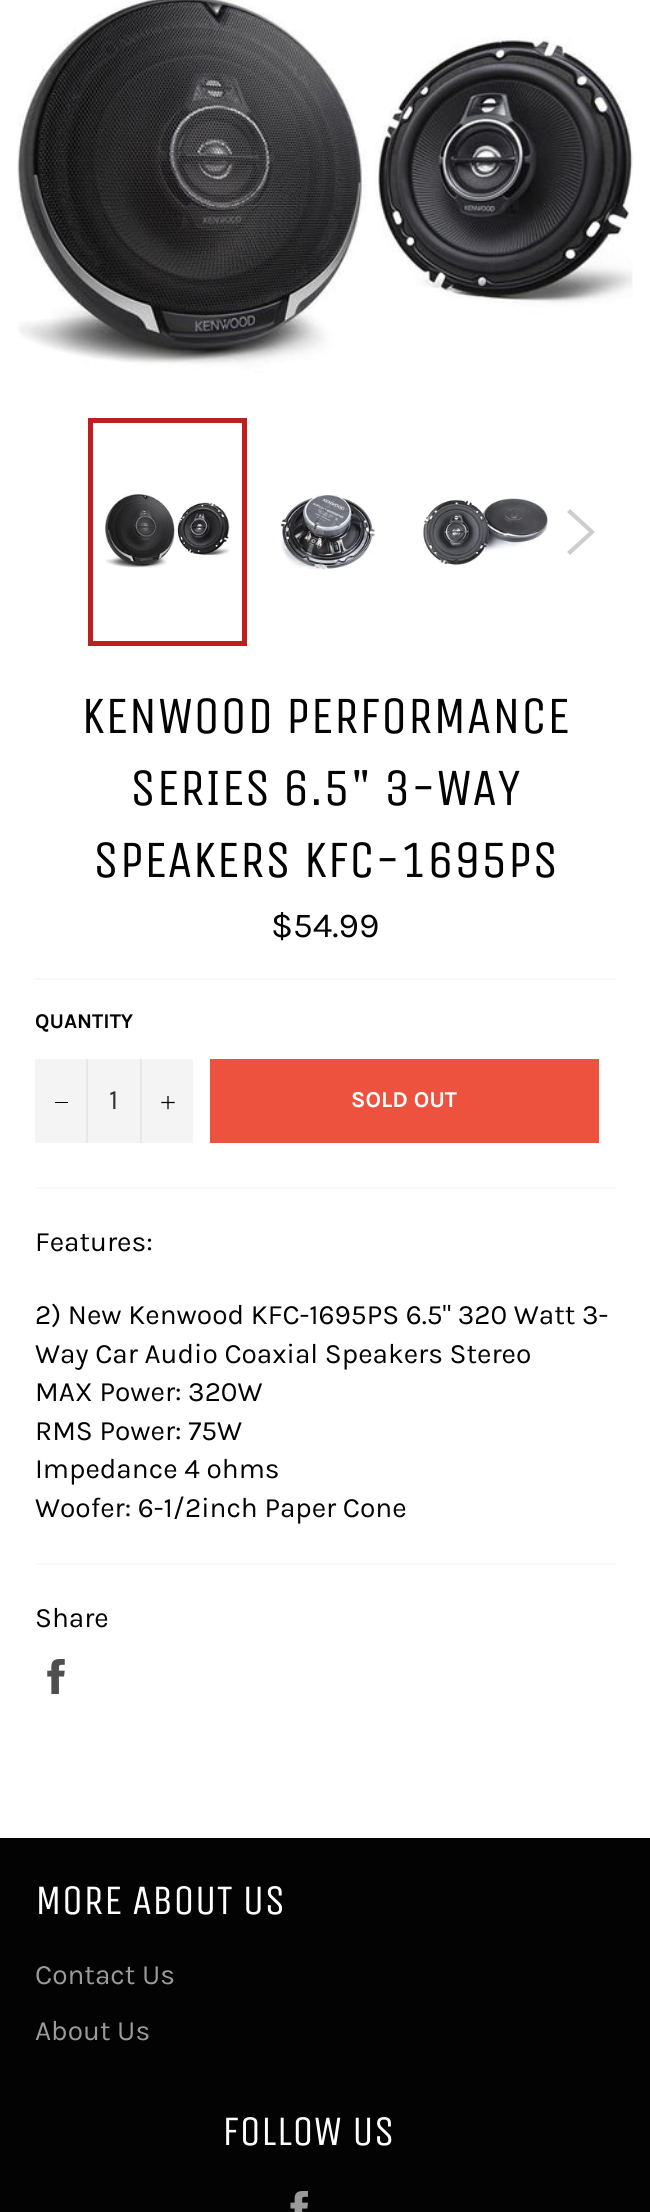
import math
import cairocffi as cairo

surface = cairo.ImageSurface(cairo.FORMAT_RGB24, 650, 2212)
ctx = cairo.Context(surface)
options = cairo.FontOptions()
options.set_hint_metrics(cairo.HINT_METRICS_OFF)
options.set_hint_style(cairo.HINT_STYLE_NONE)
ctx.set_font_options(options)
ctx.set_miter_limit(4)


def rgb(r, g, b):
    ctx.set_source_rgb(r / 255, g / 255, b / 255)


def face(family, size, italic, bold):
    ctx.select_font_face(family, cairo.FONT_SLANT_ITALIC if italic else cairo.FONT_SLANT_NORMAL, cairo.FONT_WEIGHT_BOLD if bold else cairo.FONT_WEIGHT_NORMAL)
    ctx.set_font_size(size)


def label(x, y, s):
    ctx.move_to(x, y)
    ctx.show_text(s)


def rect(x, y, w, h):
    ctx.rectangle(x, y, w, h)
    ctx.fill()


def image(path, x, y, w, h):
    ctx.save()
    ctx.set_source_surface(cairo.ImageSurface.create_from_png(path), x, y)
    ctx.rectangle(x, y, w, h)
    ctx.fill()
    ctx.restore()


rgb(255, 255, 255)
ctx.paint()
image('image0.png', 17, 0, 616, 373)
image('image1.png', 105, 494, 125, 74)
ctx.rectangle(90.5, 420.5, 154, 223)
rgb(189, 30, 30)
ctx.set_line_width(5)
ctx.stroke()
image('image2.png', 280, 494, 95, 76)
image('image3.png', 423, 498, 125, 67)
rgb(205, 205, 205)
ctx.new_path()
ctx.move_to(567, 512)
ctx.line_to(570, 509)
ctx.line_to(595, 532)
ctx.line_to(570, 555)
ctx.line_to(567, 552)
ctx.line_to(589, 532)
ctx.close_path()
ctx.fill()
face('Unica One', 52.5, 0, 0)
rgb(3, 3, 3)
label(81, 733, 'KENWOOD PERFORMANCE')
label(130, 805, 'SERIES 6.5" 3-WAY')
label(93, 877, 'SPEAKERS KFC-1695PS')
face('Karla', 35, 0, 0)
label(271, 937, '$54.99')
rgb(247, 247, 247)
rect(35, 978, 581, 2)
face('Karla', 21, 0, 1)
rgb(3, 3, 3)
label(35, 1028, 'QUANTITY')
rgb(244, 244, 244)
rect(35, 1059, 158, 84)
rgb(231, 231, 231)
rect(86, 1059, 2, 84)
rgb(3, 3, 3)
rect(55, 1102, 13, 1)
face('Karla', 28, 0, 0)
rgb(51, 51, 51)
label(109, 1109, '1')
rgb(231, 231, 231)
rect(140, 1059, 2, 84)
image('image4.png', 161, 1096, 14, 14)
rgb(236, 82, 62)
rect(210, 1059, 389, 84)
face('Karla', 22.75, 0, 1)
rgb(255, 255, 255)
label(351, 1107, 'SOLD OUT')
rgb(247, 247, 247)
rect(35, 1187, 581, 2)
face('Karla', 28, 0, 0)
rgb(3, 3, 3)
label(35, 1251, 'Features:')
label(35, 1324, '2) New Kenwood KFC-1695PS 6.5" 320 Watt 3-')
label(35, 1363, 'Way Car Audio Coaxial Speakers Stereo')
label(35, 1401, 'MAX Power: 320W')
label(35, 1440, 'RMS Power: 75W')
label(35, 1478, 'Impedance 4 ohms')
label(35, 1517, 'Woofer: 6-1/2inch Paper Cone')
rgb(247, 247, 247)
rect(35, 1563, 581, 2)
rgb(3, 3, 3)
label(35, 1627, 'Share')
image('image5.png', 47, 1659, 18, 35)
rect(0, 1838, 650, 374)
face('Unica One', 42, 0, 0)
rgb(255, 255, 255)
label(35, 1914, 'MORE ABOUT US')
face('Karla', 28, 0, 0)
rgb(154, 154, 154)
label(35, 1984, 'Contact Us')
label(35, 2040, 'About Us')
face('Unica One', 42, 0, 0)
rgb(255, 255, 255)
label(222, 2145, 'FOLLOW US')
image('image6.png', 290, 2191, 18, 21)
surface.write_to_png('render.png')
